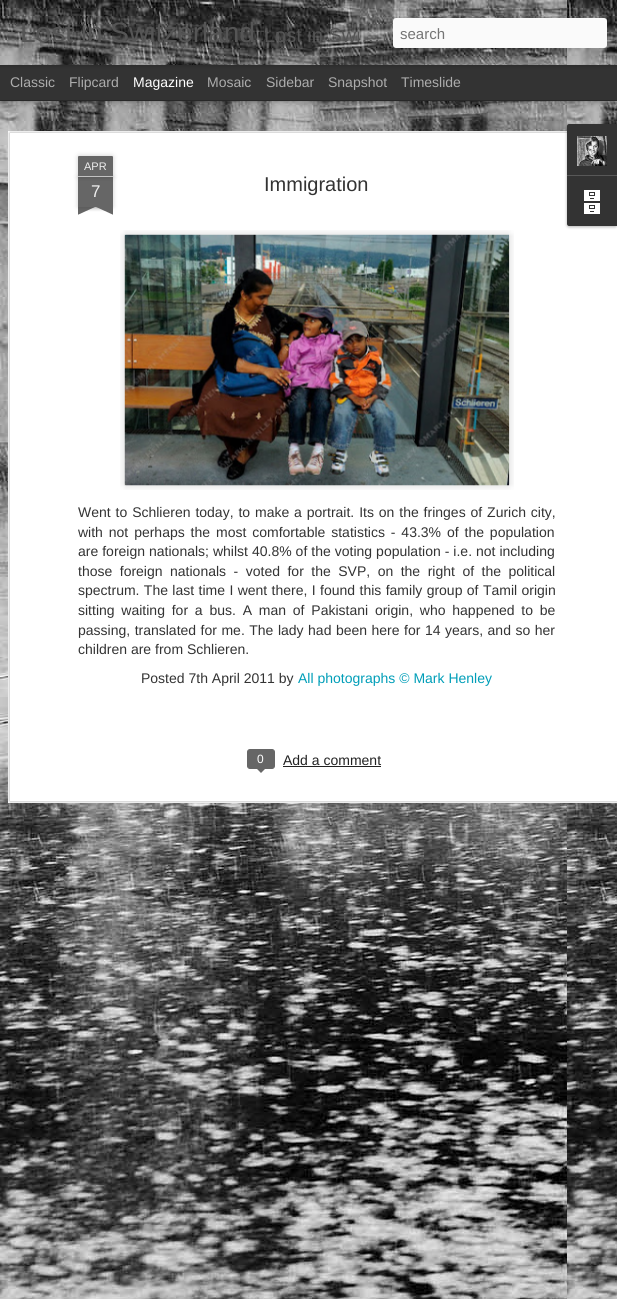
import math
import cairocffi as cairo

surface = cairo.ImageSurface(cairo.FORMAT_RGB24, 617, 1299)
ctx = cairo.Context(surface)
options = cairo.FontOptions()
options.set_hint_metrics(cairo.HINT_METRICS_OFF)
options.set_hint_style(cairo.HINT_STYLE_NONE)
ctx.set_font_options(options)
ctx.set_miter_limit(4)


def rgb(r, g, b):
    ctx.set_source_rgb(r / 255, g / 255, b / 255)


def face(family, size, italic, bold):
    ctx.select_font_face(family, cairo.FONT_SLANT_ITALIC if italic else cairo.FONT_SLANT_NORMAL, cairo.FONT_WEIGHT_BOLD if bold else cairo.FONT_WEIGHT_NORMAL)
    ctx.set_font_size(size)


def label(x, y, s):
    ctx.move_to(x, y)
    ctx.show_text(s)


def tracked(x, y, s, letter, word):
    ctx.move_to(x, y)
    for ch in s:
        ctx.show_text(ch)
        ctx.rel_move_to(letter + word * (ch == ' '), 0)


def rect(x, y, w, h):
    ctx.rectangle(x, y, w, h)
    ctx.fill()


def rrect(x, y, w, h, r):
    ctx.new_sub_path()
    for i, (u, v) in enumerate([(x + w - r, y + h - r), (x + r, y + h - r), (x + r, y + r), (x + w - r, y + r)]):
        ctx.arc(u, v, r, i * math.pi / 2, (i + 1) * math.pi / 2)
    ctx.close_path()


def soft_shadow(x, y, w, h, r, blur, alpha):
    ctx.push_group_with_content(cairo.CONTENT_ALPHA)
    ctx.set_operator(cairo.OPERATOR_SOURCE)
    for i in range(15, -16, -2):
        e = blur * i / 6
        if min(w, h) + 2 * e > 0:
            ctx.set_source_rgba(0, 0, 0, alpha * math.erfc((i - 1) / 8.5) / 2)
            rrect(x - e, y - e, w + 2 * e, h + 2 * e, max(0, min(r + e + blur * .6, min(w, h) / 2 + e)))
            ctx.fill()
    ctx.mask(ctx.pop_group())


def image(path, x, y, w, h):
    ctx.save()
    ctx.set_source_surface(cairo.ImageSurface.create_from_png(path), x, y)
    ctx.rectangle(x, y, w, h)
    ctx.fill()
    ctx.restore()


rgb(51, 51, 51)
ctx.paint()
image('image1.png', 0, 101, 617, 1198)
rgb(0, 0, 0)
soft_shadow(0, 65, 617, 35, 0, 4, 0.5)
rgb(51, 51, 51)
rect(0, 65, 617, 35)
rgb(0, 0, 0)
soft_shadow(0, 0, 617, 65, 0, 2.5, 0.3)
image('image0.png', 0, 0, 617, 65)
face('Liberation Sans', 28, 0, 0)
rgb(85, 85, 85)
label(20, 42, 'Lost in Switzerland')
face('Liberation Sans', 20, 0, 0)
label(264, 42, 'Lost in Swi…')
rgb(250, 250, 250)
rrect(393, 18, 214, 30, 3)
ctx.fill()
face('Liberation Sans', 15, 0, 0)
rgb(117, 117, 117)
label(400, 39, 'search')
face('Liberation Sans', 14, 0, 0)
rgb(173, 173, 173)
label(10, 87, 'Classic')
label(69, 87, 'Flipcard')
rgb(255, 255, 255)
label(133, 87, 'Magazine')
rgb(173, 173, 173)
label(207, 87, 'Mosaic')
label(266, 87, 'Sidebar')
label(328, 87, 'Snapshot')
label(401, 87, 'Timeslide')
rgb(255, 255, 255)
rect(8, 131, 609, 672)
image('image2.png', 8, 131, 609, 672)
rgb(0, 0, 0)
soft_shadow(78, 177, 35, 30, 0, 2.5, 0.2)
rgb(102, 102, 102)
rect(78, 177, 35, 30)
rgb(0, 0, 0)
soft_shadow(78, 156, 35, 21, 1, 2.5, 0.2)
rgb(102, 102, 102)
ctx.new_path()
ctx.move_to(79, 156)
ctx.line_to(112, 156)
ctx.curve_to(112.5, 156, 113, 156.5, 113, 157)
ctx.line_to(113, 177)
ctx.line_to(78, 177)
ctx.line_to(78, 157)
ctx.curve_to(78, 156.5, 78.5, 156, 79, 156)
ctx.close_path()
ctx.fill()
rgb(194, 194, 194)
rect(78, 176, 35, 1)
face('Liberation Sans', 11, 0, 0)
rgb(238, 238, 238)
label(84, 170, 'APR')
face('Liberation Sans', 17, 0, 0)
label(91, 197, '7')
ctx.save()
ctx.rectangle(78, 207, 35, 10)
ctx.clip()
rgb(0, 0, 0)
soft_shadow(69, 197, 50, 10, 0, 2.5, 0.2)
ctx.restore()
ctx.save()
ctx.rectangle(78, 207, 35, 10)
ctx.clip()
rgb(102, 102, 102)
ctx.new_path()
ctx.move_to(69, 208)
ctx.line_to(115, 187)
ctx.line_to(119, 196)
ctx.line_to(73, 217)
ctx.close_path()
ctx.fill()
ctx.restore()
ctx.save()
ctx.rectangle(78, 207, 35, 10)
ctx.clip()
rgb(0, 0, 0)
soft_shadow(72, 197, 50, 10, 0, 2.5, 0.2)
ctx.restore()
ctx.save()
ctx.rectangle(78, 207, 35, 10)
ctx.clip()
rgb(102, 102, 102)
ctx.new_path()
ctx.move_to(76, 187)
ctx.line_to(122, 208)
ctx.line_to(118, 217)
ctx.line_to(72, 196)
ctx.close_path()
ctx.fill()
ctx.restore()
face('Liberation Sans', 20, 0, 0)
rgb(51, 51, 51)
label(264, 191, 'Immigration')
image('image3.png', 120, 230, 394, 260)
image('image4.png', 124, 234, 386, 252)
face('Liberation Sans', 14, 0, 0)
tracked(78, 517, 'Went to Schlieren today, to make a portrait. Its on the fringes of Zurich city,', 0, 1)
tracked(78, 537, 'with not perhaps the most comfortable statistics - 43.3% of the population', 0, 2)
tracked(78, 556, 'are foreign nationals; whilst 40.8% of the voting population - i.e. not including', 0, 0.1)
tracked(78, 576, 'those foreign nationals - voted for the SVP, on the right of the political', 0, 3.6)
tracked(78, 595, 'spectrum. The last time I went there, I found this family group of Tamil origin', 0, 0.5)
tracked(78, 615, 'sitting waiting for a bus. A man of Pakistani origin, who happened to be', 0, 2.9)
tracked(78, 635, 'passing, translated for me. The lady had been here for 14 years, and so her', 0, 0.6)
label(78, 654, 'children are from Schlieren.')
label(141, 683, 'Posted 7th April 2011 by')
rgb(0, 158, 184)
label(298, 683, 'All photographs © Mark Henley')
rgb(102, 102, 102)
rrect(247.5, 749.5, 27, 19, 2.5)
ctx.fill_preserve()
ctx.set_line_width(1)
ctx.stroke()
face('Liberation Sans', 12, 0, 0)
rgb(255, 255, 255)
label(257, 763, '0')
rgb(102, 102, 102)
ctx.new_path()
ctx.move_to(256, 768)
ctx.line_to(266, 768)
ctx.line_to(261, 773)
ctx.close_path()
ctx.fill()
face('Liberation Sans', 14, 0, 0)
rgb(34, 34, 34)
label(283, 765, 'Add a comment')
rect(283, 766, 98, 1)
rgb(0, 0, 0)
soft_shadow(567, 125, 50, 102, 2, 1.5, 0.3)
rgb(51, 51, 51)
ctx.new_path()
ctx.move_to(569, 124)
ctx.line_to(617, 124)
ctx.line_to(617, 175)
ctx.line_to(567, 175)
ctx.line_to(567, 126)
ctx.curve_to(567, 125, 568, 124, 569, 124)
ctx.close_path()
ctx.fill()
image('image5.png', 577, 136, 30, 30)
ctx.new_path()
ctx.move_to(567, 175)
ctx.line_to(617, 175)
ctx.line_to(617, 226)
ctx.line_to(569, 226)
ctx.curve_to(568, 226, 567, 225, 567, 224)
ctx.close_path()
ctx.fill()
rgb(88, 88, 88)
rect(567, 175, 50, 1)
image('image6.png', 584, 190, 16, 24)
surface.write_to_png('render.png')
